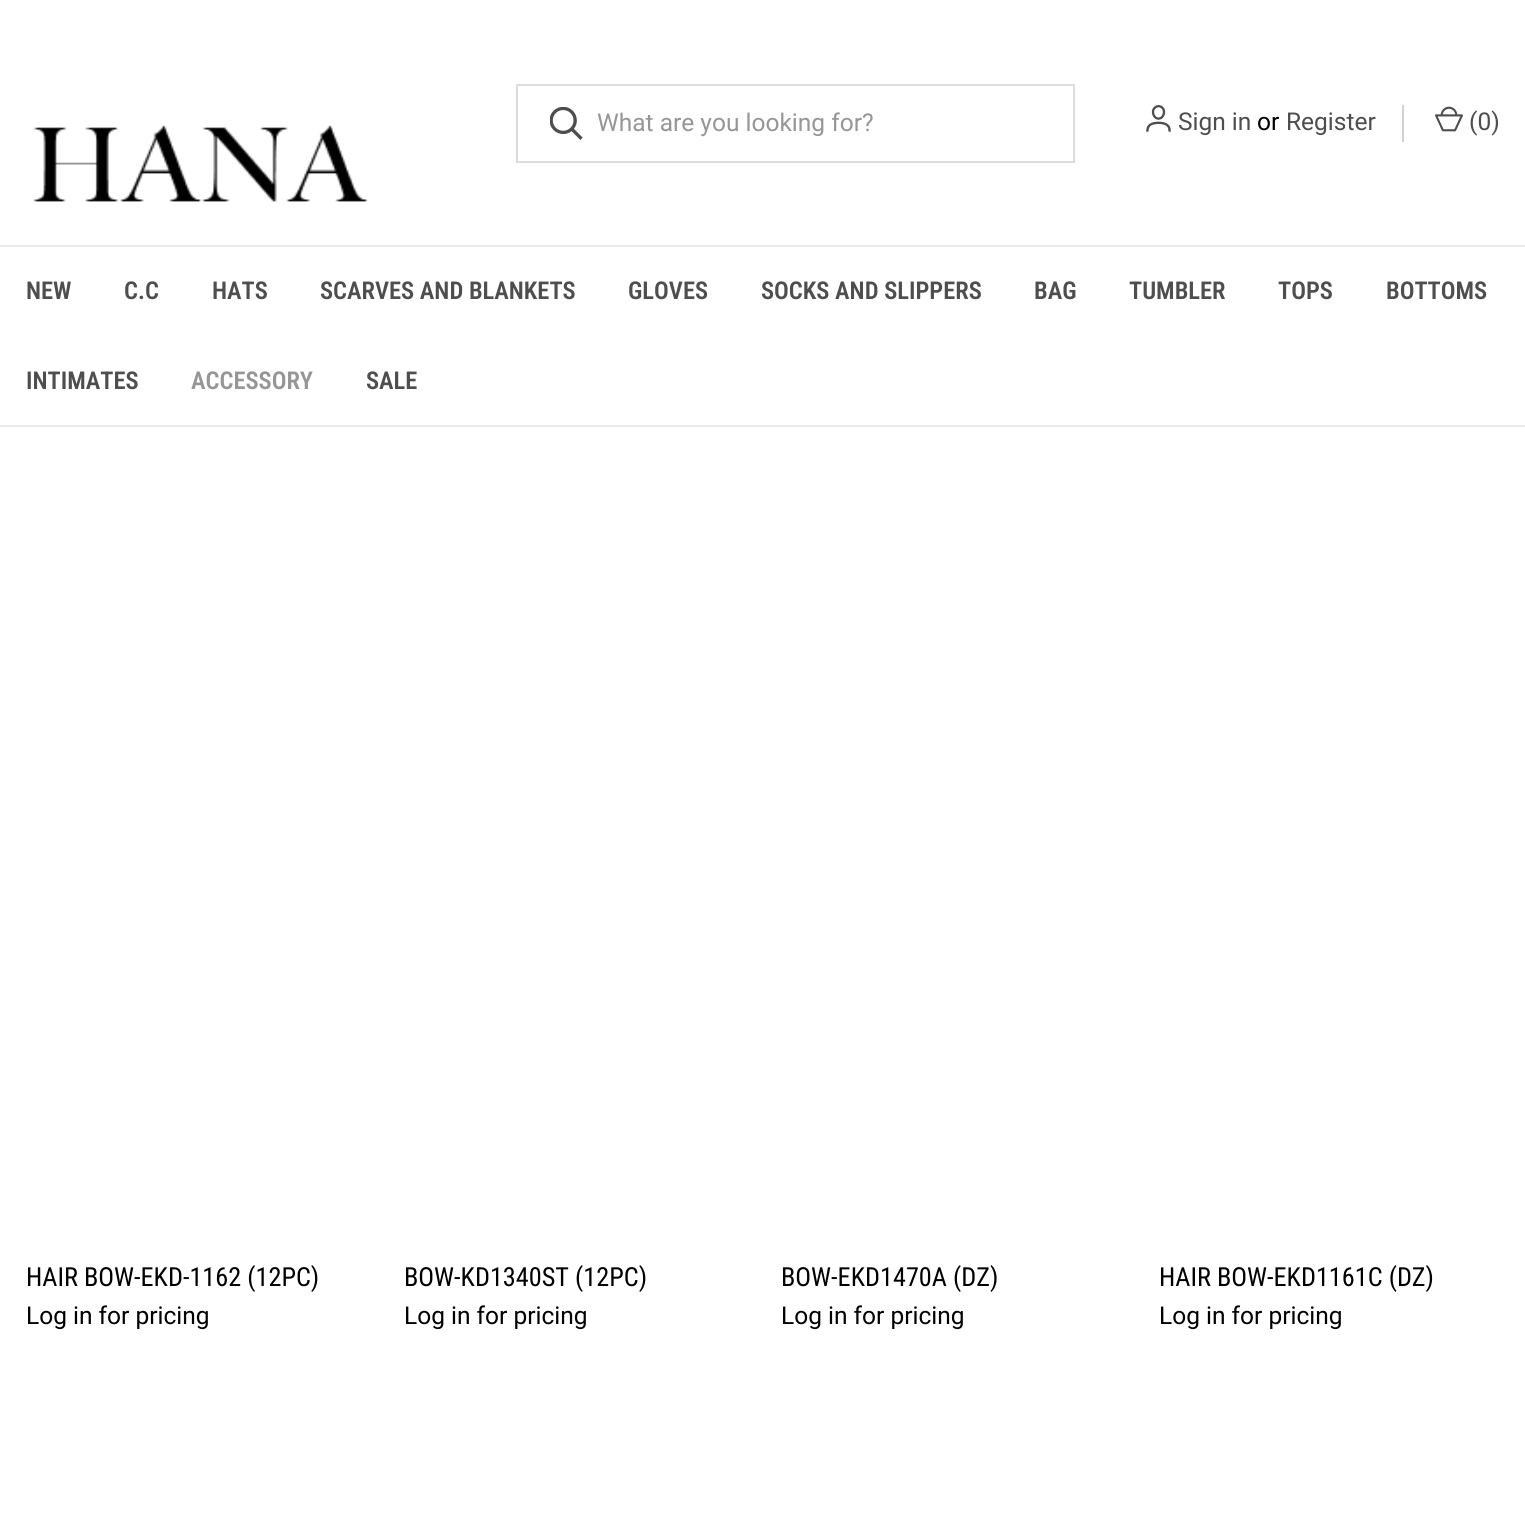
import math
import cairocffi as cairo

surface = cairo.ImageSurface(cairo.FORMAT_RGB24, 1525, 1518)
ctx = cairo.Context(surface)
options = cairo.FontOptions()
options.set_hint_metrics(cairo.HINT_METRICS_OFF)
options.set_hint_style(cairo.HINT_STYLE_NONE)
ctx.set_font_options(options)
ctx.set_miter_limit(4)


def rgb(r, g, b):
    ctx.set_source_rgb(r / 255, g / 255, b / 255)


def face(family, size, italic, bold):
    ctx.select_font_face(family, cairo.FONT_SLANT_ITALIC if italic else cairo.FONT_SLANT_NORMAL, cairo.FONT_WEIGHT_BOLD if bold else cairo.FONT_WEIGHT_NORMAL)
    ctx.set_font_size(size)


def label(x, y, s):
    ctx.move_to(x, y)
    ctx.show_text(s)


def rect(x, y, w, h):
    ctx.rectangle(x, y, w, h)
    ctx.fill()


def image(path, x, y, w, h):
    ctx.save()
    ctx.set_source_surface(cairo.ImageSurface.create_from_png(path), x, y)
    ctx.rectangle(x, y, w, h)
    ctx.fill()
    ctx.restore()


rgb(255, 255, 255)
ctx.paint()
image('image0.png', 33, 125, 335, 77)
ctx.rectangle(517, 85, 557, 77)
rgb(221, 221, 221)
ctx.stroke()
image('image1.png', 550, 107, 33, 33)
face('Roboto', 24.5, 0, 0)
rgb(150, 150, 150)
label(597, 131, 'What are you looking for?')
image('image2.png', 1146, 105, 25, 27)
rgb(78, 78, 78)
label(1178, 130, 'Sign in')
rgb(0, 0, 0)
label(1257, 130, 'or')
rgb(78, 78, 78)
label(1286, 130, 'Register')
rgb(210, 210, 210)
rect(1402, 105, 2, 37)
image('image3.png', 1435, 106, 28, 26)
rgb(78, 78, 78)
label(1469, 130, '(0)')
rgb(235, 235, 235)
rect(0, 245, 1525, 2)
rect(0, 425, 1525, 2)
face('Roboto Condensed SemiBold', 24.5, 0, 0)
rgb(78, 78, 78)
label(26, 299, 'NEW')
label(124, 299, 'C.C')
label(212, 299, 'HATS')
label(320, 299, 'SCARVES AND BLANKETS')
label(628, 299, 'GLOVES')
label(761, 299, 'SOCKS AND SLIPPERS')
label(1034, 299, 'BAG')
label(1129, 299, 'TUMBLER')
label(1278, 299, 'TOPS')
label(1386, 299, 'BOTTOMS')
label(26, 389, 'INTIMATES')
rgb(150, 150, 150)
label(191, 389, 'ACCESSORY')
rgb(78, 78, 78)
label(366, 389, 'SALE')
face('Roboto Condensed', 26.25, 0, 0)
rgb(0, 0, 0)
label(26, 1286, 'HAIR BOW-EKD-1162 (12PC)')
face('Roboto', 24.5, 0, 0)
label(26, 1324, 'Log in for pricing')
face('Roboto Condensed', 26.25, 0, 0)
label(404, 1286, 'BOW-KD1340ST (12PC)')
face('Roboto', 24.5, 0, 0)
label(404, 1324, 'Log in for pricing')
face('Roboto Condensed', 26.25, 0, 0)
label(781, 1286, 'BOW-EKD1470A (DZ)')
face('Roboto', 24.5, 0, 0)
label(781, 1324, 'Log in for pricing')
face('Roboto Condensed', 26.25, 0, 0)
label(1159, 1286, 'HAIR BOW-EKD1161C (DZ)')
face('Roboto', 24.5, 0, 0)
label(1159, 1324, 'Log in for pricing')
surface.write_to_png('render.png')
